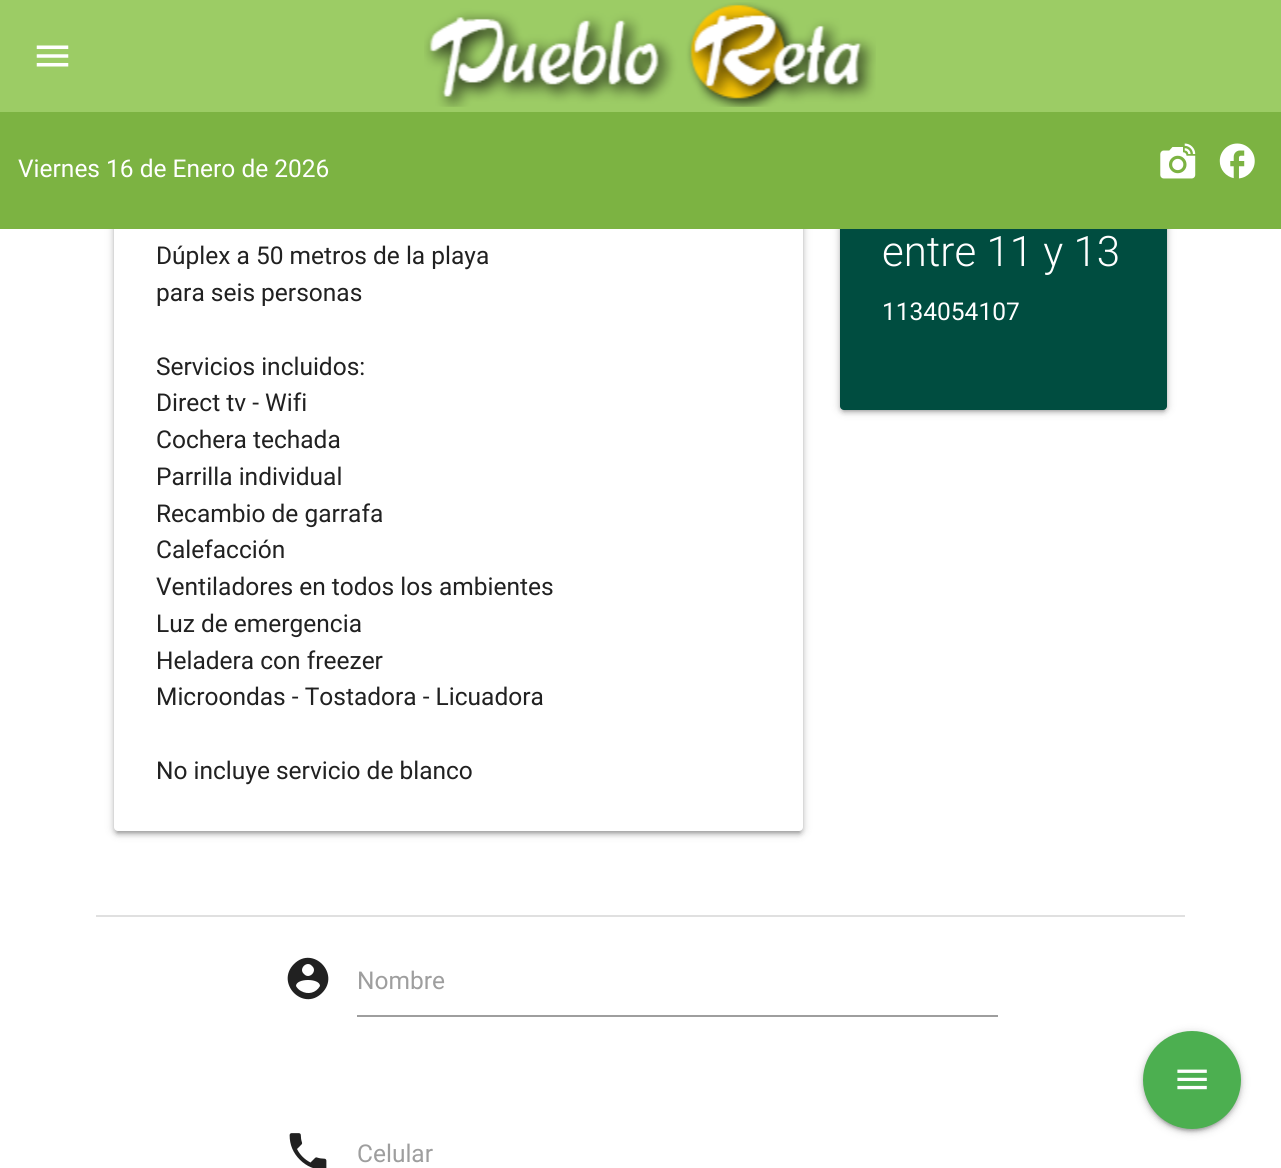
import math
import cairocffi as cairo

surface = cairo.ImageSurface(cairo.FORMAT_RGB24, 1281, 1168)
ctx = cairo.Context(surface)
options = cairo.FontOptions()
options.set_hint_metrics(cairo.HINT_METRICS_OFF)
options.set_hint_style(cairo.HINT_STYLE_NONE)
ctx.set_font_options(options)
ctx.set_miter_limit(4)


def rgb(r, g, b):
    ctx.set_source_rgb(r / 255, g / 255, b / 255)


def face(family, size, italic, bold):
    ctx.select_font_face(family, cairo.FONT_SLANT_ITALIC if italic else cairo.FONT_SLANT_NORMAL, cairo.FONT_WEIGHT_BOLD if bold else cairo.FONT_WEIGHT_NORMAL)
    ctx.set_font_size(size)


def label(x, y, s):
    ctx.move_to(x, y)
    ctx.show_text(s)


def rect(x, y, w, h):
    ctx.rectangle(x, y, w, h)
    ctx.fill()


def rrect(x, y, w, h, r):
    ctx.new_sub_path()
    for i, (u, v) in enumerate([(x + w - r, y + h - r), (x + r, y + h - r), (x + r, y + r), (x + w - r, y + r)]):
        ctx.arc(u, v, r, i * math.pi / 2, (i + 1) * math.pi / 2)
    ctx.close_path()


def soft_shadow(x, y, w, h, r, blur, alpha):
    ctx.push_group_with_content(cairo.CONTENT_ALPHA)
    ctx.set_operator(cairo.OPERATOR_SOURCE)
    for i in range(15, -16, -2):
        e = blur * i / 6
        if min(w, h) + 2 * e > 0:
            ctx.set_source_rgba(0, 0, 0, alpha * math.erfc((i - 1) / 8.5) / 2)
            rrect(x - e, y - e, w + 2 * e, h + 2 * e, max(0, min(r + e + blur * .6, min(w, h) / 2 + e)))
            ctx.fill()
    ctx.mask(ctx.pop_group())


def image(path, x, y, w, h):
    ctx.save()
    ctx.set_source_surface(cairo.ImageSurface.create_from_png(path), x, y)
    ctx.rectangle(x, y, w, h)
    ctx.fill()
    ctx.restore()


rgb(255, 255, 255)
ctx.paint()
rgb(156, 204, 101)
rect(0, 0, 1281, 112)
image('image0.png', 36, 45, 33, 22)
image('image1.png', 424, 2, 452, 105)
rgb(0, 0, 0)
soft_shadow(114, 128, 689, 705, 4, 4.5, 0.2)
soft_shadow(117, 135, 683, 698, 0, 1, 0.12)
soft_shadow(114, 130, 689, 705, 4, 2, 0.14)
rgb(255, 255, 255)
rrect(114, 126, 689, 705, 4)
ctx.fill()
rgb(0, 0, 0)
soft_shadow(840, 128, 327, 283, 4, 4.5, 0.2)
soft_shadow(844, 135, 320, 276, 0, 1, 0.12)
soft_shadow(840, 130, 327, 283, 4, 2, 0.14)
rgb(0, 77, 64)
rrect(840, 126, 327, 284, 4)
ctx.fill()
rgb(124, 179, 66)
rect(0, 112, 1281, 117)
face('Roboto', 24.5, 0, 0)
rgb(255, 255, 255)
label(18, 177, 'Viernes 16 de Enero de 2026')
image('image2.png', 1160, 143, 36, 36)
image('image3.png', 1219, 143, 36, 36)
rgb(33, 33, 33)
label(156, 264, 'Dúplex a 50 metros de la playa')
label(156, 301, 'para seis personas')
label(156, 375, 'Servicios incluidos:')
label(156, 411, 'Direct tv - Wifi')
label(156, 448, 'Cochera techada')
label(156, 485, 'Parrilla individual')
label(156, 522, 'Recambio de garrafa')
label(156, 558, 'Calefacción')
label(156, 595, 'Ventiladores en todos los ambientes')
label(156, 632, 'Luz de emergencia')
label(156, 669, 'Heladera con freezer')
label(156, 705, 'Microondas - Tostadora - Licuadora')
label(156, 779, 'No incluye servicio de blanco')
face('Roboto Light', 42, 0, 0)
rgb(255, 255, 255)
label(882, 266, 'entre 11 y 13')
face('Roboto', 24.5, 0, 0)
label(882, 320, '1134054107')
rgb(224, 224, 224)
rect(96, 915, 1089, 2)
rgb(33, 33, 33)
ctx.new_path()
ctx.move_to(301, 991)
ctx.curve_to(308, 995, 316, 993, 320, 986)
ctx.curve_to(320, 978, 296, 978, 296, 986)
ctx.curve_to(297, 988, 299, 990, 301, 991)
ctx.close_path()
ctx.move_to(312, 966)
ctx.curve_to(307, 960, 298, 969, 304, 974)
ctx.curve_to(309, 980, 318, 971, 312, 966)
ctx.close_path()
ctx.move_to(294, 964)
ctx.curve_to(313, 945, 341, 974, 322, 993)
ctx.curve_to(303, 1012, 275, 983, 294, 964)
ctx.close_path()
ctx.fill()
rgb(158, 158, 158)
label(357, 989, 'Nombre')
rect(357, 1015, 641, 2)
image('image4.png', 289, 1133, 38, 35)
label(357, 1162, 'Celular')
rgb(0, 0, 0)
soft_shadow(1143, 1033, 98, 98, 49, 4.5, 0.2)
soft_shadow(1146, 1040, 91, 91, 45.5, 1, 0.12)
soft_shadow(1143, 1034, 98, 98, 49, 2, 0.14)
rgb(76, 175, 80)
ctx.arc(1192, 1080, 49, 0, 2 * math.pi)
ctx.fill()
image('image5.png', 1177, 1069, 30, 21)
surface.write_to_png('render.png')
